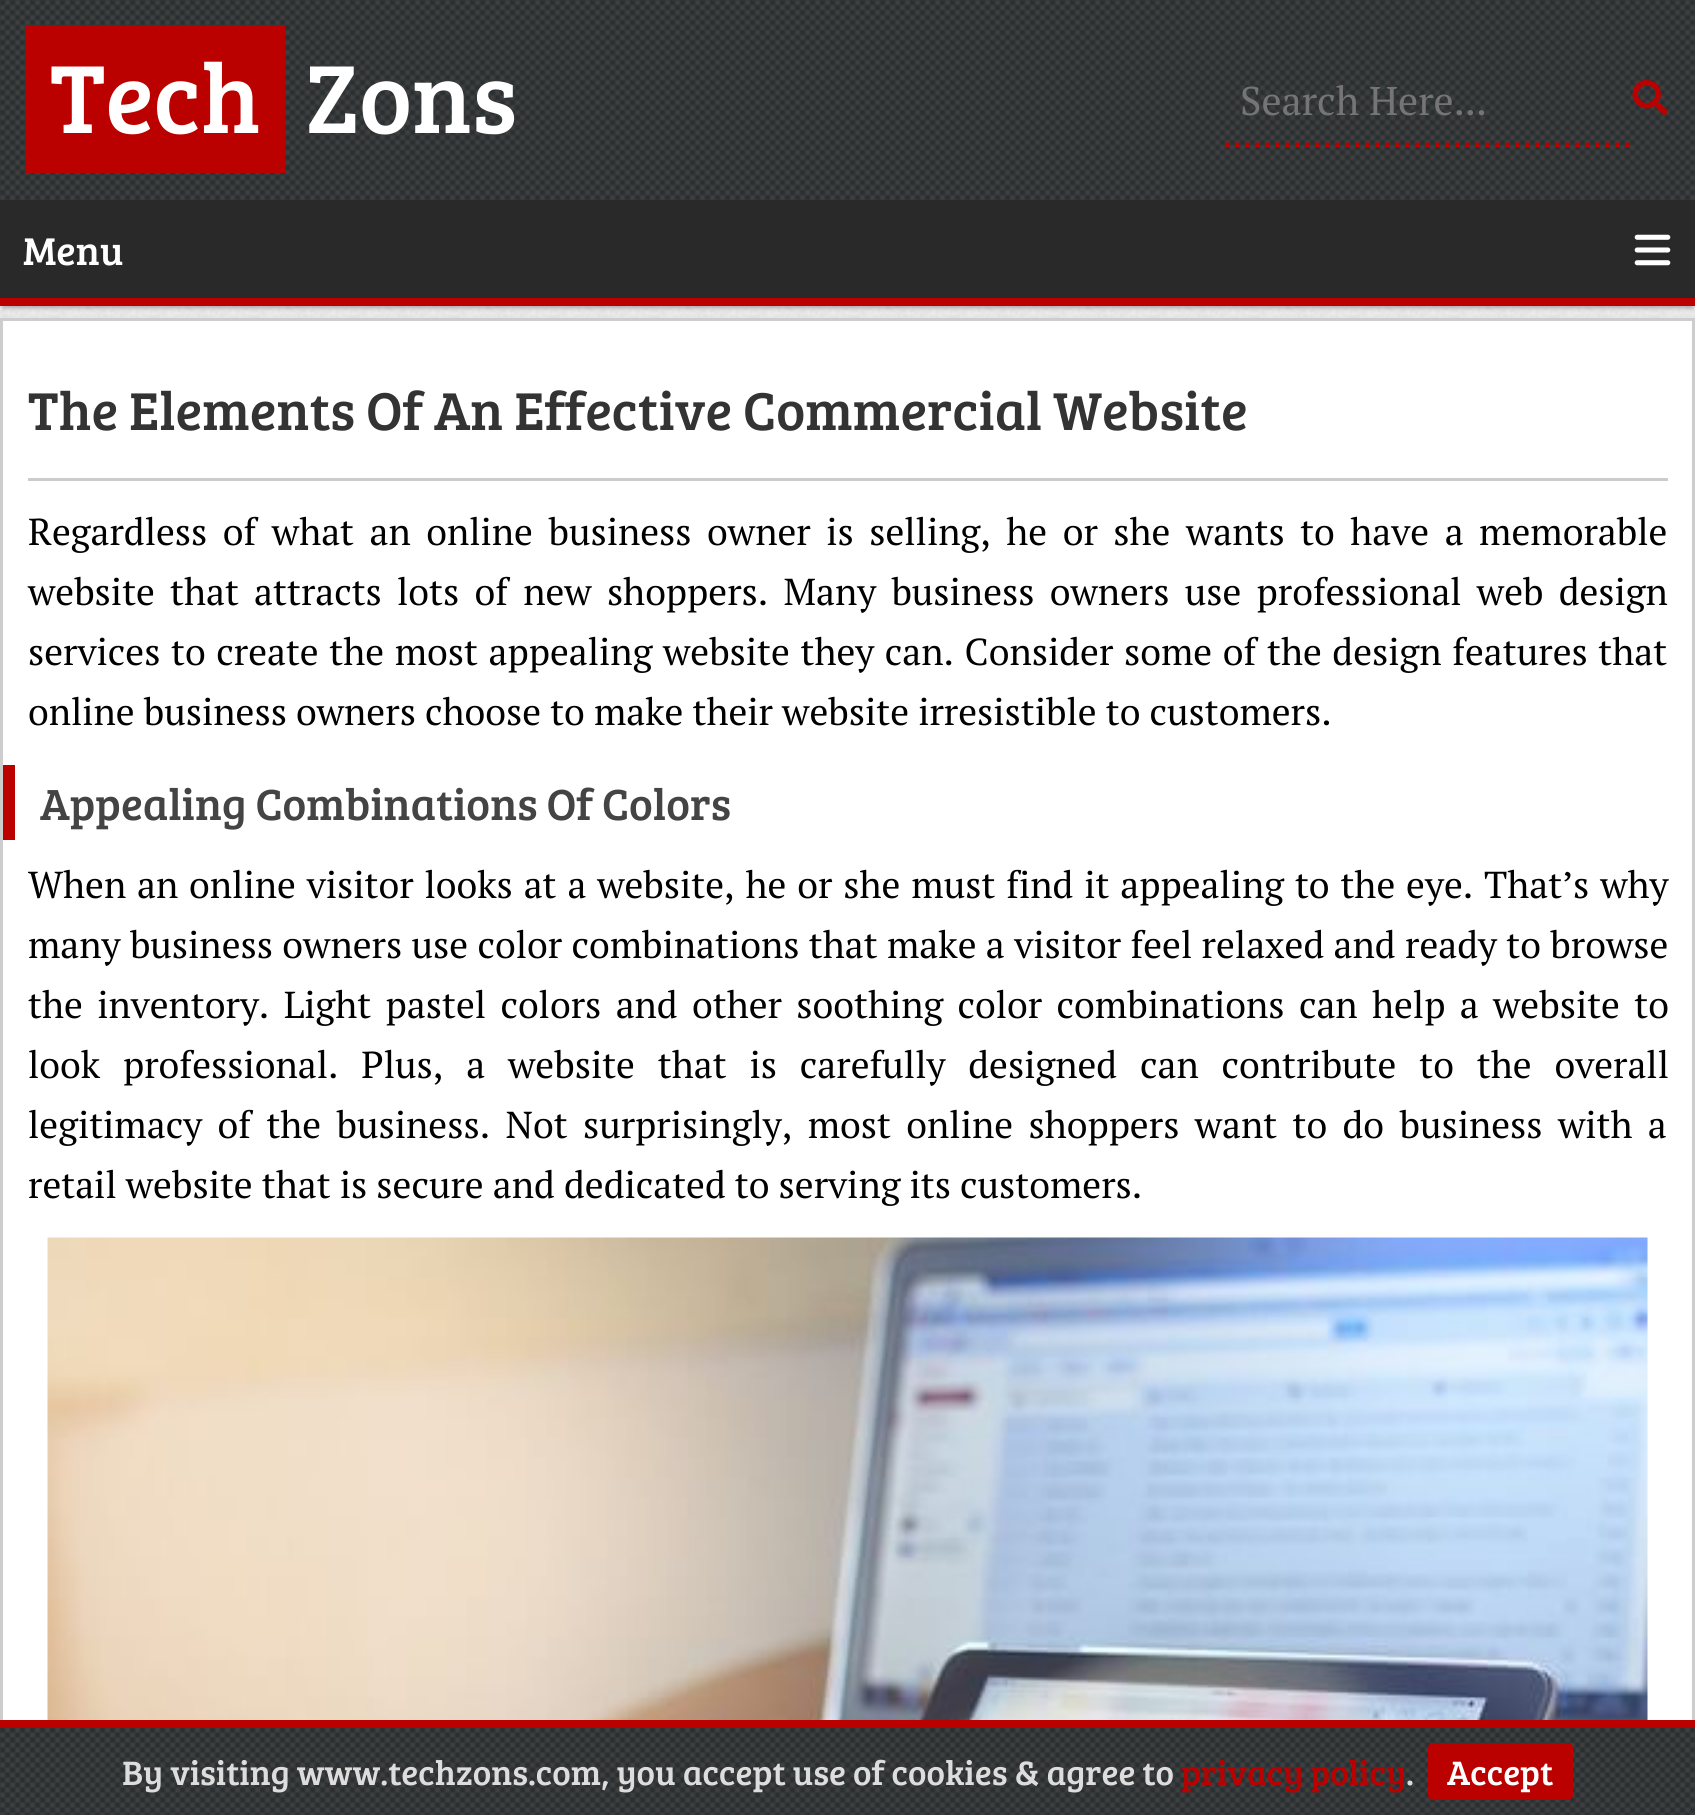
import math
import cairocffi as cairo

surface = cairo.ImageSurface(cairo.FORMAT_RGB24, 1695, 1815)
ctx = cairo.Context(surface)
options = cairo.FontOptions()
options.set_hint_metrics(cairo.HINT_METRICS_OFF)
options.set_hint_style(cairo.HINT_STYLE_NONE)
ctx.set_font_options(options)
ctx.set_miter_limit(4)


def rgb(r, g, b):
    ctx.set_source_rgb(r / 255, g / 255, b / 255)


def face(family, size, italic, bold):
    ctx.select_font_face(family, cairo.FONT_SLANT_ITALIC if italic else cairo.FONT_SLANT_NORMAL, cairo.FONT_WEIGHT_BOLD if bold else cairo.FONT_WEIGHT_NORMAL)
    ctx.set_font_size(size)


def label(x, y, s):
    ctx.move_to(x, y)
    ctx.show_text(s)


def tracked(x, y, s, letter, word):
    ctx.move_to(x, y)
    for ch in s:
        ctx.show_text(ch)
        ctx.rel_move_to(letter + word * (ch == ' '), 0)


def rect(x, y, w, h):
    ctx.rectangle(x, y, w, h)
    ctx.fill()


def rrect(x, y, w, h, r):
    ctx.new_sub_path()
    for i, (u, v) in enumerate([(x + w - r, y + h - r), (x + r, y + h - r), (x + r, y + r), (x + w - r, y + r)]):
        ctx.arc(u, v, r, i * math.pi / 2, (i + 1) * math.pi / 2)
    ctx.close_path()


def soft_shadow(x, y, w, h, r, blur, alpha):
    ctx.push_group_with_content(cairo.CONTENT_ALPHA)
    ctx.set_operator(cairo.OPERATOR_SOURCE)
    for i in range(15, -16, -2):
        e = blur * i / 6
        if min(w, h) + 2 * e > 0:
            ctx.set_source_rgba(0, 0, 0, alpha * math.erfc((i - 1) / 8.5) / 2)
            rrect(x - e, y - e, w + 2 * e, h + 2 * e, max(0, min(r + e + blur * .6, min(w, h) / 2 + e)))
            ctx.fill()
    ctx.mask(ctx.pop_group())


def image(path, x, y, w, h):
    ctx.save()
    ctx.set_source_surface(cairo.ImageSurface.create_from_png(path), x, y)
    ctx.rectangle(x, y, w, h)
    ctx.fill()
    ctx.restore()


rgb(255, 255, 255)
ctx.paint()
image('image0.png', 0, 306, 1695, 12)
image('image1.png', 0, 0, 1695, 200)
rgb(187, 0, 0)
rect(25, 25, 260, 148)
face('Bree Serif', 100, 0, 0)
rgb(255, 255, 255)
label(50, 133, 'Tech')
label(306, 133, 'Zons')
ctx.new_path()
ctx.move_to(1225, 145)
ctx.line_to(1630, 145)
rgb(187, 0, 0)
ctx.set_line_width(5)
ctx.set_dash([5, 5])
ctx.stroke()
face('PT Serif', 40, 0, 0)
rgb(117, 117, 117)
label(1240, 115, 'Search Here...')
image('image2.png', 1632, 80, 36, 35)
rgb(0, 0, 0)
soft_shadow(3, 208, 1690, 100, 0, 2.5, 0.3)
rgb(41, 41, 41)
rect(0, 200, 1695, 98)
rgb(0, 0, 0)
soft_shadow(3, 320, 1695, 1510, 0, 5, 0.1)
rgb(187, 0, 0)
rect(0, 298, 1695, 8)
face('Bree Serif', 40, 0, 0)
rgb(255, 255, 255)
label(23, 265, 'Menu')
image('image3.png', 1634, 234, 37, 32)
rect(3, 321, 1689, 1399)
ctx.rectangle(1.5, 319.5, 1692, 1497)
rgb(205, 205, 205)
ctx.set_line_width(3)
ctx.set_dash([])
ctx.stroke()
rgb(204, 204, 204)
rect(28, 478, 1640, 3)
face('Bree Serif', 55, 0, 0)
rgb(51, 51, 51)
label(28, 430, 'The Elements Of An Effective Commercial Website')
face('PT Serif', 37.5, 0, 0)
rgb(0, 0, 0)
tracked(28, 545, 'Regardless of what an online business owner is selling, he or she wants to have a memorable', 0, 6.4)
tracked(28, 605, 'website that attracts lots of new shoppers. Many business owners use professional web design', 0, 6.1)
tracked(28, 665, 'services to create the most appealing website they can. Consider some of the design features that', 0, 1.5)
label(28, 725, 'online business owners choose to make their website irresistible to customers.')
rgb(187, 0, 0)
rect(3, 765, 12, 75)
face('Bree Serif', 45, 0, 0)
rgb(68, 68, 68)
label(40, 820, 'Appealing Combinations Of Colors')
face('PT Serif', 37.5, 0, 0)
rgb(0, 0, 0)
tracked(28, 898, 'When an online visitor looks at a website, he or she must find it appealing to the eye. That’s why', 0, 1.75)
tracked(28, 958, 'many business owners use color combinations that make a visitor feel relaxed and ready to browse', 0, 0.25)
tracked(28, 1018, 'the inventory. Light pastel colors and other soothing color combinations can help a website to', 0, 5.25)
tracked(28, 1078, 'look professional. Plus, a website that is carefully designed can contribute to the overall', 0, 13.75)
tracked(28, 1138, 'legitimacy of the business. Not surprisingly, most online shoppers want to do business with a', 0, 6.25)
label(28, 1198, 'retail website that is secure and dedicated to serving its customers.')
image('image4.png', 47, 1237, 1601, 483)
image('image5.png', 0, 1728, 1695, 87)
rgb(187, 0, 0)
rect(0, 1720, 1695, 8)
face('Bree Serif', 35, 0, 0)
rgb(221, 221, 221)
label(122, 1785, 'By visiting www.techzons.com, you accept use of cookies & agree to')
rgb(187, 0, 0)
label(1181, 1785, 'privacy policy')
rgb(221, 221, 221)
label(1406, 1785, '.')
rgb(187, 0, 0)
rrect(1428, 1743, 145, 57, 5)
ctx.fill()
rgb(255, 255, 255)
label(1447, 1785, 'Accept')
surface.write_to_png('render.png')
